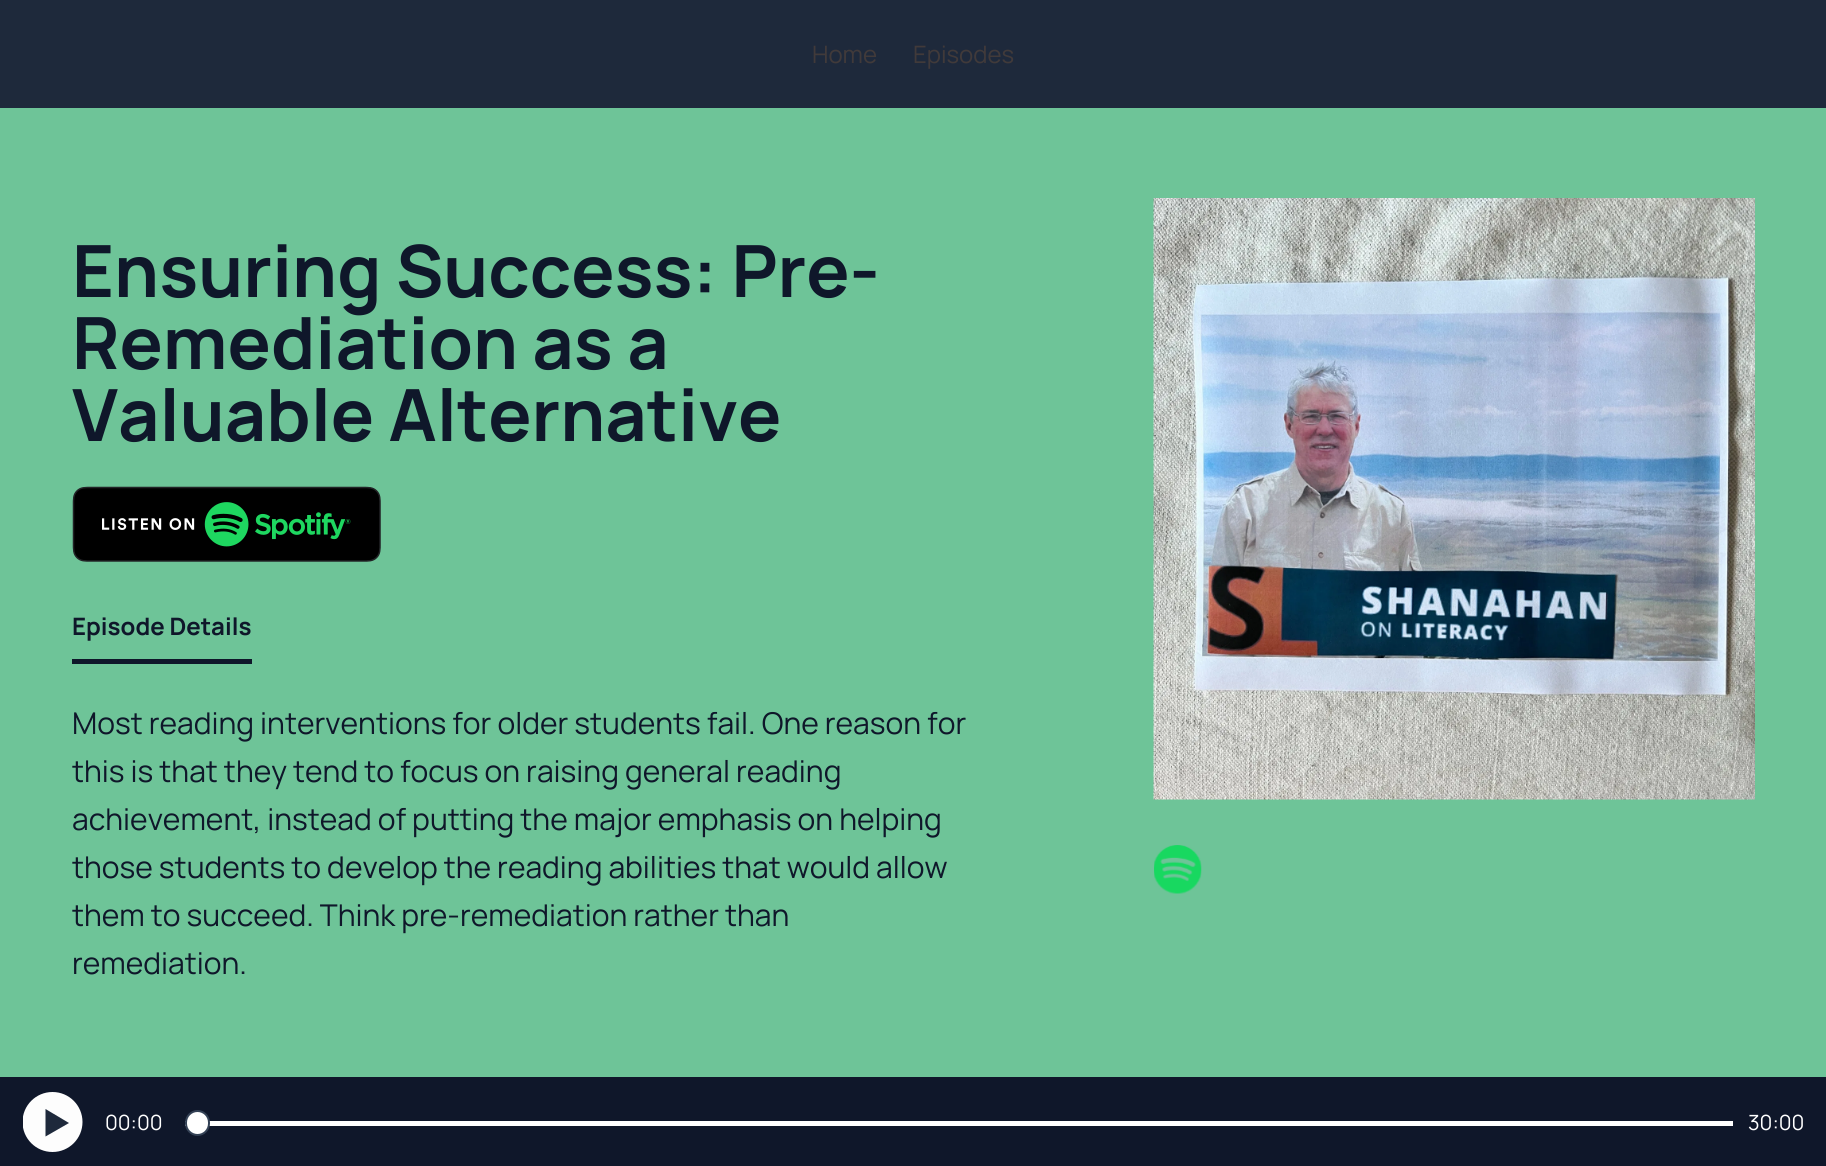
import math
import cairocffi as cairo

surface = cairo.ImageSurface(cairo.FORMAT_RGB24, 1826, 1166)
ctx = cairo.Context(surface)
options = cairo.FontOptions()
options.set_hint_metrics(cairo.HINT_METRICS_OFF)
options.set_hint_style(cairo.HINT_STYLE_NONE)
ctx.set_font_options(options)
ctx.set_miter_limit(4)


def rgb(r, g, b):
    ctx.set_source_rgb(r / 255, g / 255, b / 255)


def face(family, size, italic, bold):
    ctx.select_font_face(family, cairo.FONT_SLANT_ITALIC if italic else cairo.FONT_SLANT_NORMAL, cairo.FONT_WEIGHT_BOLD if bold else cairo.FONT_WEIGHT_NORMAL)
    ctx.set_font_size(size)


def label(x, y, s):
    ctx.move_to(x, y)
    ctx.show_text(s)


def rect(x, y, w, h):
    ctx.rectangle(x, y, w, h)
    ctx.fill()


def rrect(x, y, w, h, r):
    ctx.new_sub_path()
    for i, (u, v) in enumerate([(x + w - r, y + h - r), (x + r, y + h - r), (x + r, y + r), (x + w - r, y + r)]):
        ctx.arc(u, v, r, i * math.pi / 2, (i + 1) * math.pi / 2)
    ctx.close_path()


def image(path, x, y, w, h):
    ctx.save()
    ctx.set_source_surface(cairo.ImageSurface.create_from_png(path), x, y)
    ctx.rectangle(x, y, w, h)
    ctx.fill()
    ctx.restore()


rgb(110, 196, 152)
ctx.paint()
rgb(30, 41, 59)
rect(0, 0, 1826, 108)
face('Manrope', 24, 0, 0)
rgb(65, 58, 58)
label(812, 63, 'Home')
label(913, 63, 'Episodes')
face('Manrope', 72, 0, 1)
rgb(15, 23, 42)
label(72, 297, 'Ensuring Success: Pre-')
label(72, 369, 'Remediation as a')
label(72, 441, 'Valuable Alternative')
image('image0.png', 72, 486, 309, 76)
rect(72, 659, 180, 5)
face('Manrope', 24, 0, 1)
label(72, 635, 'Episode Details')
face('Manrope', 30, 0, 0)
label(72, 734, 'Most reading interventions for older students fail. One reason for')
label(72, 782, 'this is that they tend to focus on raising general reading')
label(72, 830, 'achievement, instead of putting the major emphasis on helping')
label(72, 878, 'those students to develop the reading abilities that would allow')
label(72, 926, 'them to succeed. Think pre-remediation rather than')
label(72, 974, 'remediation.')
image('image1.png', 1153, 198, 602, 602)
image('image2.png', 1154, 845, 48, 49)
rect(0, 1077, 1826, 89)
ctx.save()
ctx.rectangle(23, 1092, 60, 60)
ctx.clip()
rgb(253, 253, 253)
ctx.arc(52.5, 1122, 30, 0, 2 * math.pi)
ctx.fill()
ctx.restore()
rgb(30, 41, 59)
ctx.new_path()
ctx.move_to(69, 1123)
ctx.line_to(45.5, 1136.5)
ctx.line_to(45.5, 1109)
ctx.close_path()
ctx.fill()
face('Manrope', 21, 0, 0)
rgb(255, 255, 255)
label(105, 1130, '00:00')
rect(185, 1121, 1548, 5)
rrect(186, 1111, 23, 24, 11.5)
ctx.fill_preserve()
rgb(51, 65, 85)
ctx.stroke()
rgb(255, 255, 255)
label(1748, 1130, '30:00')
surface.write_to_png('render.png')
